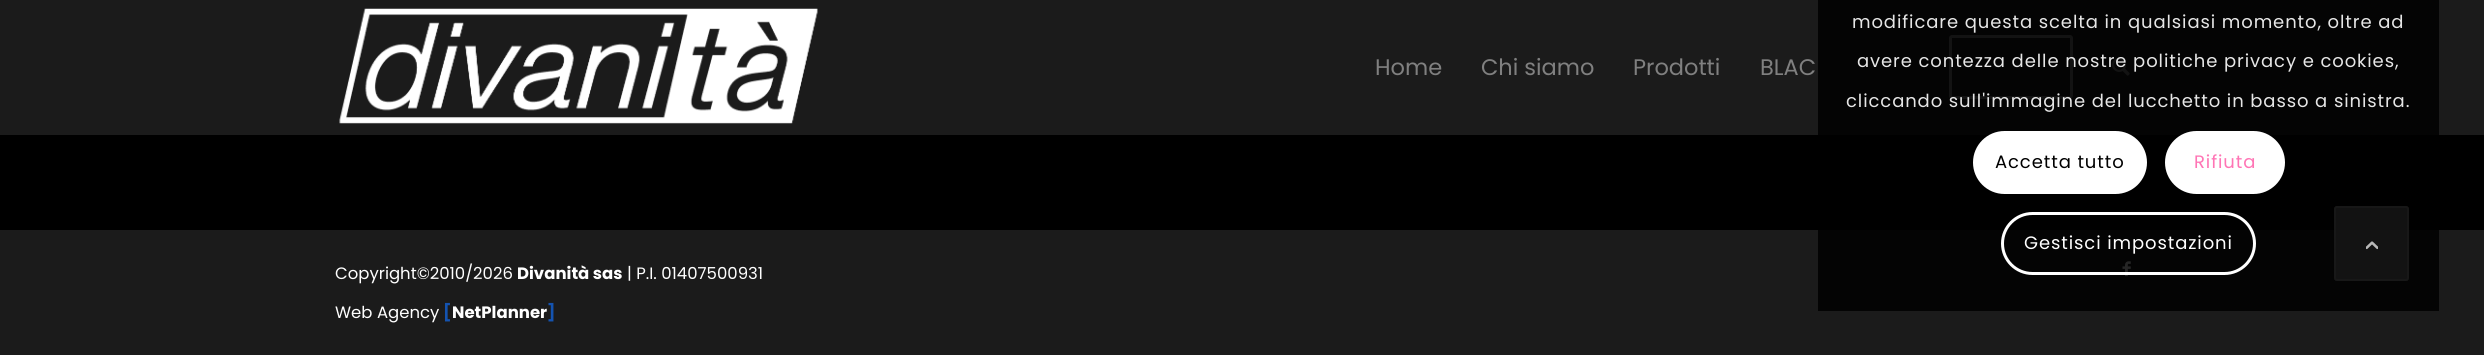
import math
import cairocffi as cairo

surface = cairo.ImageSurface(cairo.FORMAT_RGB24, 2484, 355)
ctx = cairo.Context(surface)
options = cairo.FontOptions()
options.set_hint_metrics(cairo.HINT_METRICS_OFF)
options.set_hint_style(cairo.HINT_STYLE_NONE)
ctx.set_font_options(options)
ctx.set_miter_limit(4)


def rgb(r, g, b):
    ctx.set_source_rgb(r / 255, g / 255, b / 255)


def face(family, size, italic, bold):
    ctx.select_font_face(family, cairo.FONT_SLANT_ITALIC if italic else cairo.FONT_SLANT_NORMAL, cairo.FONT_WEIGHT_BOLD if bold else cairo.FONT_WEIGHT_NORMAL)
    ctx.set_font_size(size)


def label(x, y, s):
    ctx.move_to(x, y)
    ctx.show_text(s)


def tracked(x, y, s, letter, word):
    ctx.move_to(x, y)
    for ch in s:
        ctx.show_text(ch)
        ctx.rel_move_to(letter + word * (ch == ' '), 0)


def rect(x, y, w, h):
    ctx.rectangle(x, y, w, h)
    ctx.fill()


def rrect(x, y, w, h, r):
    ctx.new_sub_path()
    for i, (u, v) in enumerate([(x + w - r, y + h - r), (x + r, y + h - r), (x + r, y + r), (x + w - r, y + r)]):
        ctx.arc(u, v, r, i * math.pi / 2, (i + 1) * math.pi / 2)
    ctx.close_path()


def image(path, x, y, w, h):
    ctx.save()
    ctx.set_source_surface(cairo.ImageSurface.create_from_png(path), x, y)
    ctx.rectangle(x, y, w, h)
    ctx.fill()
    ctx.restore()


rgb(0, 0, 0)
ctx.paint()
rgb(27, 27, 27)
rect(0, 0, 2484, 135)
image('image0.png', 339, 8, 479, 116)
face('Poppins', 22.5, 0, 0)
rgb(128, 128, 128)
label(1375, 75, 'Home')
label(1481, 75, 'Chi siamo')
label(1633, 75, 'Prodotti')
label(1760, 75, 'BLAC')
rrect(1950.5, 36.5, 121, 61, 1.5)
ctx.set_line_width(3)
ctx.stroke()
image('image1.png', 2112, 57, 18, 19)
rgb(27, 27, 27)
rect(0, 230, 2484, 125)
face('Poppins', 16.5, 0, 0)
rgb(255, 255, 255)
label(335, 279, 'Copyright©2010/2026')
face('Poppins', 16.5, 0, 1)
label(517, 279, 'Divanità sas')
face('Poppins', 16.5, 0, 0)
label(627, 279, '| P.I. 01407500931')
label(335, 318, 'Web Agency')
face('Poppins', 16.5, 0, 1)
rgb(20, 83, 176)
label(443, 318, '[')
rgb(255, 255, 255)
label(452, 318, 'NetPlanner')
rgb(20, 83, 176)
label(547, 318, ']')
image('image2.png', 2122, 261, 9, 16)
ctx.set_source_rgba(0, 0, 0, 0.85)
rect(1818, 0, 621, 311)
face('Poppins', 18, 0, 0)
rgb(230, 230, 230)
tracked(1852, 28, 'modificare questa scelta in qualsiasi momento, oltre ad', 0.9, 0)
tracked(1857, 67, 'avere contezza delle nostre politiche privacy e cookies,', 0.9, 0)
tracked(1846, 107, 'cliccando sull\'immagine del lucchetto in basso a sinistra.', 0.9, 0)
rgb(255, 255, 255)
rrect(1973, 131, 174, 63, 31.5)
ctx.fill()
rgb(0, 0, 0)
tracked(1995, 168, 'Accetta tutto', 0.9, 0)
rgb(255, 255, 255)
rrect(2166.5, 132.5, 117, 60, 30)
ctx.fill_preserve()
ctx.stroke()
rgb(255, 117, 181)
tracked(2194, 168, 'Rifiuta', 0.9, 0)
rrect(2002.5, 213.5, 252, 60, 30)
rgb(255, 255, 255)
ctx.stroke()
tracked(2024, 249, 'Gestisci impostazioni', 0.9, 0)
ctx.set_source_rgba(0.106, 0.106, 0.106, 0.7)
rrect(2334, 206, 75, 75, 3)
ctx.fill()
rrect(2335, 207, 73, 73, 2)
ctx.set_line_width(2)
ctx.stroke()
image('image3.png', 2366, 241, 12, 9)
surface.write_to_png('render.png')
